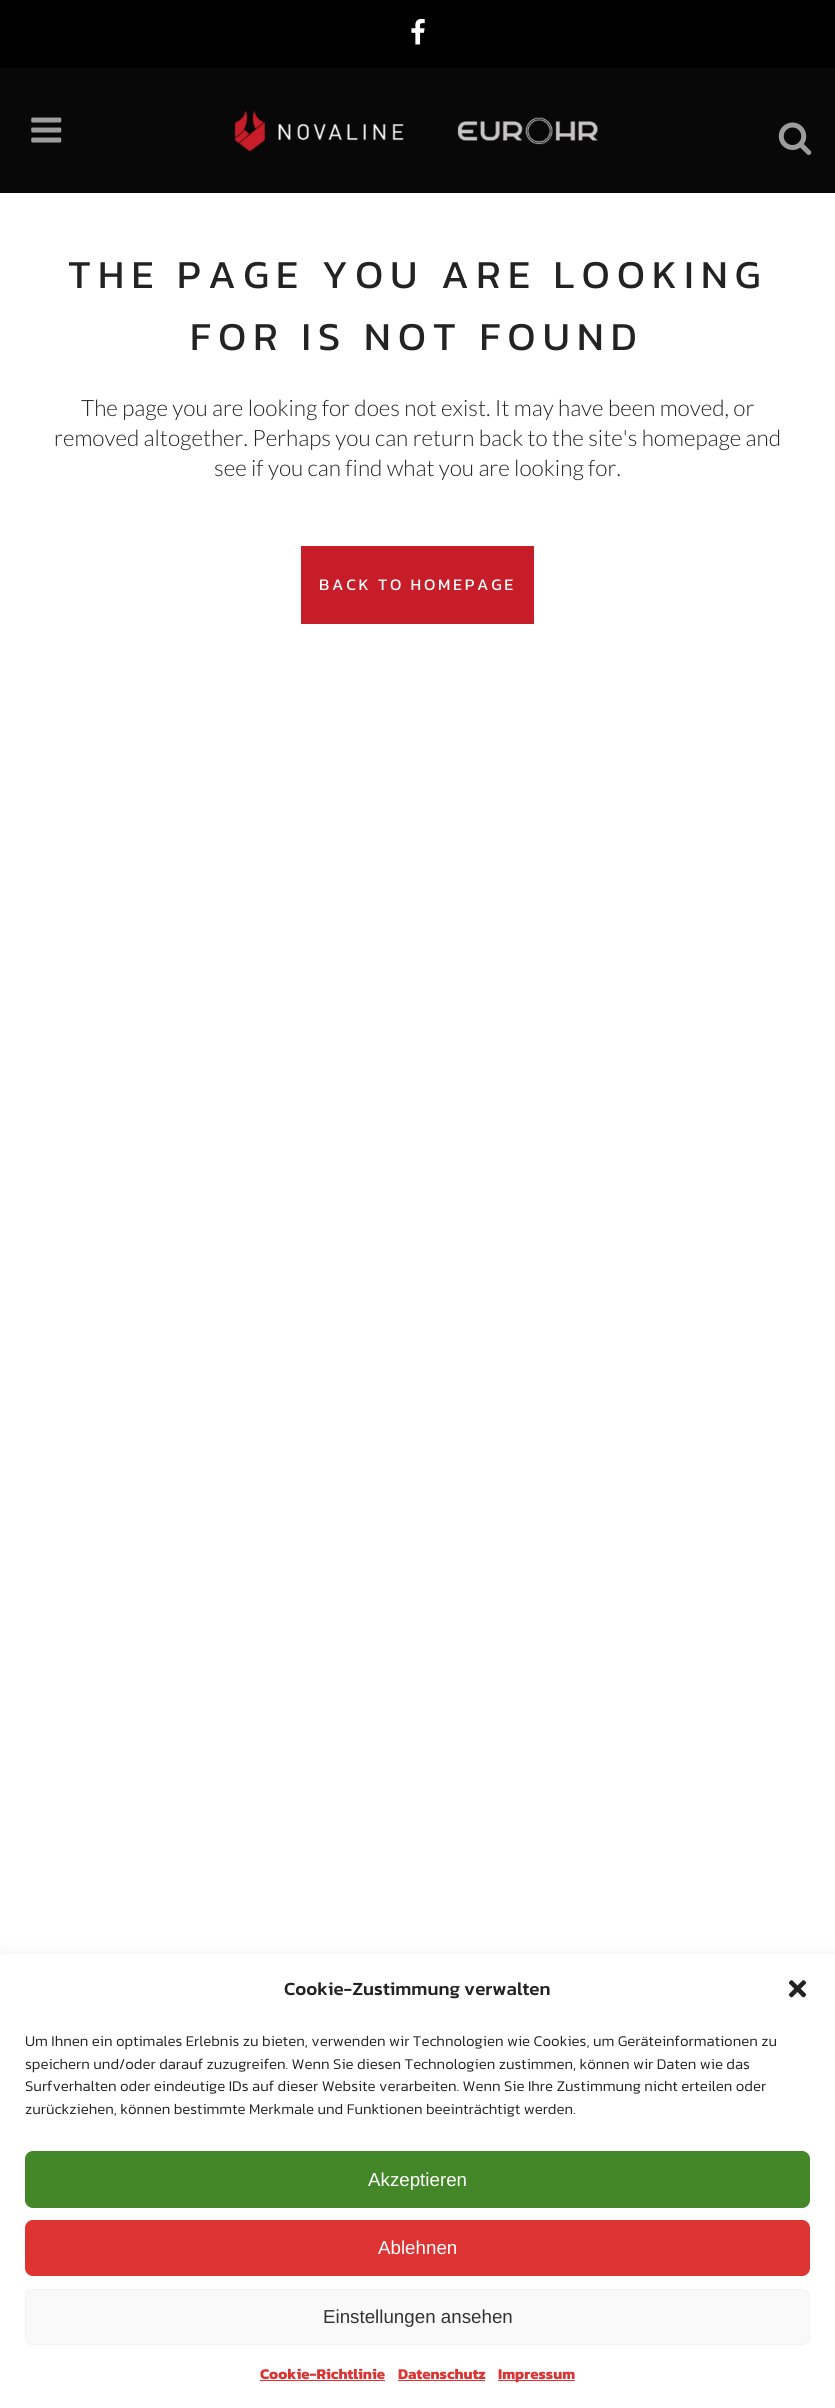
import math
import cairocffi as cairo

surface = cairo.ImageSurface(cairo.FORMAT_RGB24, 835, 2408)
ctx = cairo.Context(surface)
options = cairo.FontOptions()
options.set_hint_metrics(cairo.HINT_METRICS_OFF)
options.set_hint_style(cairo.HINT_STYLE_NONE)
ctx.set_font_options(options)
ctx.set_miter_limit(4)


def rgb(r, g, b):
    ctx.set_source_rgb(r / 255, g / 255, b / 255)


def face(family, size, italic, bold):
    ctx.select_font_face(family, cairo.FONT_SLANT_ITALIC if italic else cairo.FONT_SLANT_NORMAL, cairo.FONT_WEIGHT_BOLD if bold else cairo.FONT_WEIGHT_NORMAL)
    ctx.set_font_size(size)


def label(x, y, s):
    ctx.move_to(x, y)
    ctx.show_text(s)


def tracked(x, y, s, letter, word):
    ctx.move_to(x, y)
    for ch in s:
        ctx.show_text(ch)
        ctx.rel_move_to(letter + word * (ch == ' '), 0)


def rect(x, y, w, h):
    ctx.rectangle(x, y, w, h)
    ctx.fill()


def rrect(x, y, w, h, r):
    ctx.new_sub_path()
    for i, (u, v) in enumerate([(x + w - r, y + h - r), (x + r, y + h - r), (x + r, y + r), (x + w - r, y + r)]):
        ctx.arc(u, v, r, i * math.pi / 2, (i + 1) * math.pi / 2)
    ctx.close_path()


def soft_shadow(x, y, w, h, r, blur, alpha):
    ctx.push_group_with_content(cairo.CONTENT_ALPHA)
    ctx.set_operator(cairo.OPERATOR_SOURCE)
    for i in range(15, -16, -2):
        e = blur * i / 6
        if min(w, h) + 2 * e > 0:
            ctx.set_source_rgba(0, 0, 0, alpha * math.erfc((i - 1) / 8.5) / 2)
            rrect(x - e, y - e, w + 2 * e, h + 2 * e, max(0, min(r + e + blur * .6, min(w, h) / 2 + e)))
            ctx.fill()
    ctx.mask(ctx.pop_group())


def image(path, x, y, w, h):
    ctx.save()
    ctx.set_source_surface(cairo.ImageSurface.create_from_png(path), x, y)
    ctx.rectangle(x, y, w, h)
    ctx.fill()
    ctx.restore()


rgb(255, 255, 255)
ctx.paint()
rgb(0, 0, 0)
rect(0, 0, 835, 68)
image('image0.png', 411, 18, 14, 27)
rgb(8, 8, 8)
rect(0, 68, 835, 125)
image('image1.png', 31, 117, 31, 26)
image('image2.png', 234, 110, 364, 42)
image('image3.png', 778, 122, 34, 33)
face('Kanit', 40, 0, 0)
rgb(36, 35, 35)
tracked(68, 288, 'THE PAGE YOU ARE LOOKING', 7.25, 0)
tracked(190, 350, 'FOR IS NOT FOUND', 7.25, 0)
face('Lato Light', 22.5, 0, 0)
label(81, 416, 'The page you are looking for does not exist. It may have been moved, or')
label(54, 446, 'removed altogether. Perhaps you can return back to the site\'s homepage and')
label(214, 476, 'see if you can find what you are looking for.')
rgb(199, 29, 41)
rect(301, 546, 233, 78)
face('Kanit', 16.25, 0, 0)
rgb(255, 255, 255)
tracked(319, 590, 'BACK TO HOMEPAGE', 2.75, 0)
rgb(0, 0, 0)
soft_shadow(0, 1966, 835, 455, 0, 12.5, 0.19)
rgb(255, 255, 255)
rect(0, 1954, 835, 454)
face('Kanit Medium', 18.75, 0, 0)
rgb(36, 35, 35)
label(284, 1995, 'Cookie-Zustimmung verwalten')
image('image4.png', 788, 1980, 19, 18)
face('Kanit Light', 15, 0, 0)
label(25, 2046, 'Um Ihnen ein optimales Erlebnis zu bieten, verwenden wir Technologien wie Cookies, um Geräteinformationen zu')
label(25, 2069, 'speichern und/oder darauf zuzugreifen. Wenn Sie diesen Technologien zustimmen, können wir Daten wie das')
label(25, 2091, 'Surfverhalten oder eindeutige IDs auf dieser Website verarbeiten. Wenn Sie Ihre Zustimmung nicht erteilen oder')
label(25, 2114, 'zurückziehen, können bestimmte Merkmale und Funktionen beeinträchtigt werden.')
rgb(67, 135, 40)
rrect(25.5, 2151.5, 784, 56, 7.5)
ctx.fill_preserve()
ctx.set_line_width(1)
ctx.stroke()
face('Liberation Sans', 18.75, 0, 0)
rgb(255, 255, 255)
label(368, 2186, 'Akzeptieren')
rgb(221, 51, 51)
rrect(25.5, 2220.5, 784, 55, 7.5)
ctx.fill_preserve()
ctx.stroke()
rgb(255, 255, 255)
label(378, 2254, 'Ablehnen')
rgb(249, 249, 249)
rrect(25.5, 2289.5, 784, 55, 7.5)
ctx.fill_preserve()
rgb(242, 242, 242)
ctx.stroke()
rgb(51, 51, 51)
label(323, 2323, 'Einstellungen ansehen')
face('Kanit', 15, 0, 1)
rgb(221, 51, 51)
label(260, 2379, 'Cookie-Richtlinie')
rect(260, 2380, 125, 1)
label(398, 2379, 'Datenschutz')
rect(398, 2380, 87, 1)
rect(498, 2380, 77, 1)
label(498, 2379, 'Impressum')
surface.write_to_png('render.png')
